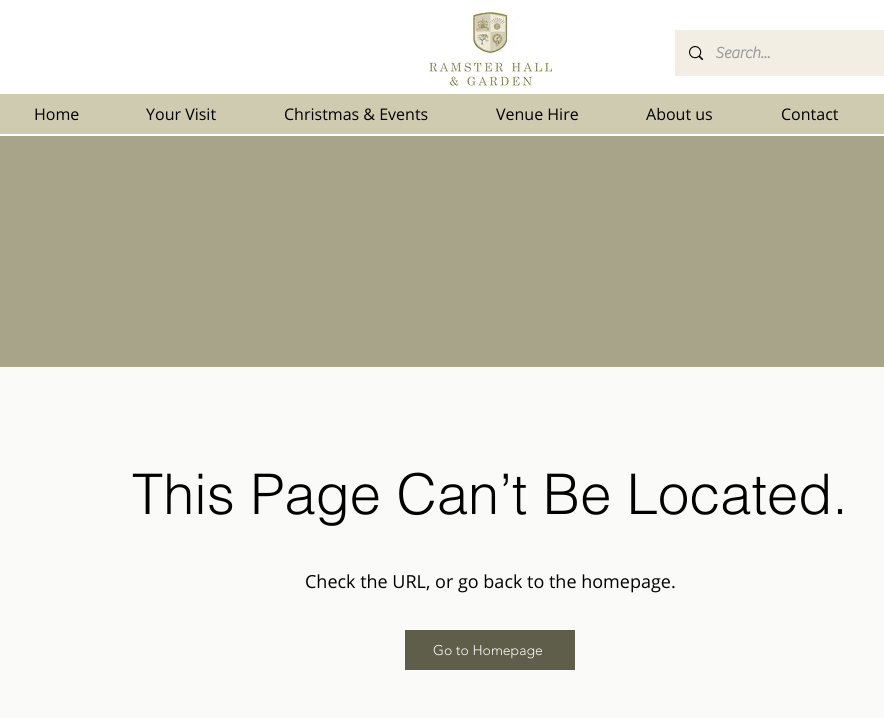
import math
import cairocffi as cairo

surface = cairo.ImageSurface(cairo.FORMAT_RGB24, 884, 718)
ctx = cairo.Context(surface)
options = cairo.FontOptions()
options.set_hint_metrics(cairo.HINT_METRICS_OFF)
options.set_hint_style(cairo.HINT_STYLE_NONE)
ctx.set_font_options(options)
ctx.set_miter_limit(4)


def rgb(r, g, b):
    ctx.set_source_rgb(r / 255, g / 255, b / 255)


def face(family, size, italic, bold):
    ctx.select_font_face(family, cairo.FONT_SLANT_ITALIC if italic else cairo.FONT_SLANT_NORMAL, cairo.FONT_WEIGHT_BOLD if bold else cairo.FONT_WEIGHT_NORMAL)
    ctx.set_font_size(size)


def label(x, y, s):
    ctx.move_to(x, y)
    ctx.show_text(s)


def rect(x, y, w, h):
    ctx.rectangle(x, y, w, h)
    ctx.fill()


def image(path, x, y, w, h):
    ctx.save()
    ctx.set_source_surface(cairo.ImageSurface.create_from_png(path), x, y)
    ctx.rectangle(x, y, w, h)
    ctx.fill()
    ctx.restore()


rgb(168, 164, 137)
ctx.paint()
rgb(255, 255, 255)
rect(0, 0, 884, 136)
image('image0.png', 429, 12, 123, 76)
rgb(242, 238, 228)
rect(675, 30, 209, 46)
image('image1.png', 689, 46, 14, 14)
face('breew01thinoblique', 16, 0, 1)
rgb(153, 153, 153)
label(715, 58, 'Search...')
rgb(207, 203, 176)
rect(0, 94, 884, 40)
face('Open Sans', 16, 0, 0)
rgb(0, 0, 0)
label(34, 120, 'Home')
label(146, 120, 'Your Visit')
label(284, 120, 'Christmas & Events')
label(496, 120, 'Venue Hire')
label(646, 120, 'About us')
label(781, 120, 'Contact')
rgb(250, 250, 248)
rect(0, 367, 884, 351)
face('helvetica Light', 56, 0, 0)
rgb(0, 0, 0)
label(132, 514, 'This Page Can’t Be Located.')
face('Open Sans', 18, 0, 0)
label(305, 588, 'Check the URL, or go back to the homepage.')
rgb(95, 94, 74)
rect(405, 630, 170, 40)
face('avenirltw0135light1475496 Light', 14, 0, 0)
rgb(250, 250, 248)
label(433, 655, 'Go to Homepage')
surface.write_to_png('render.png')
